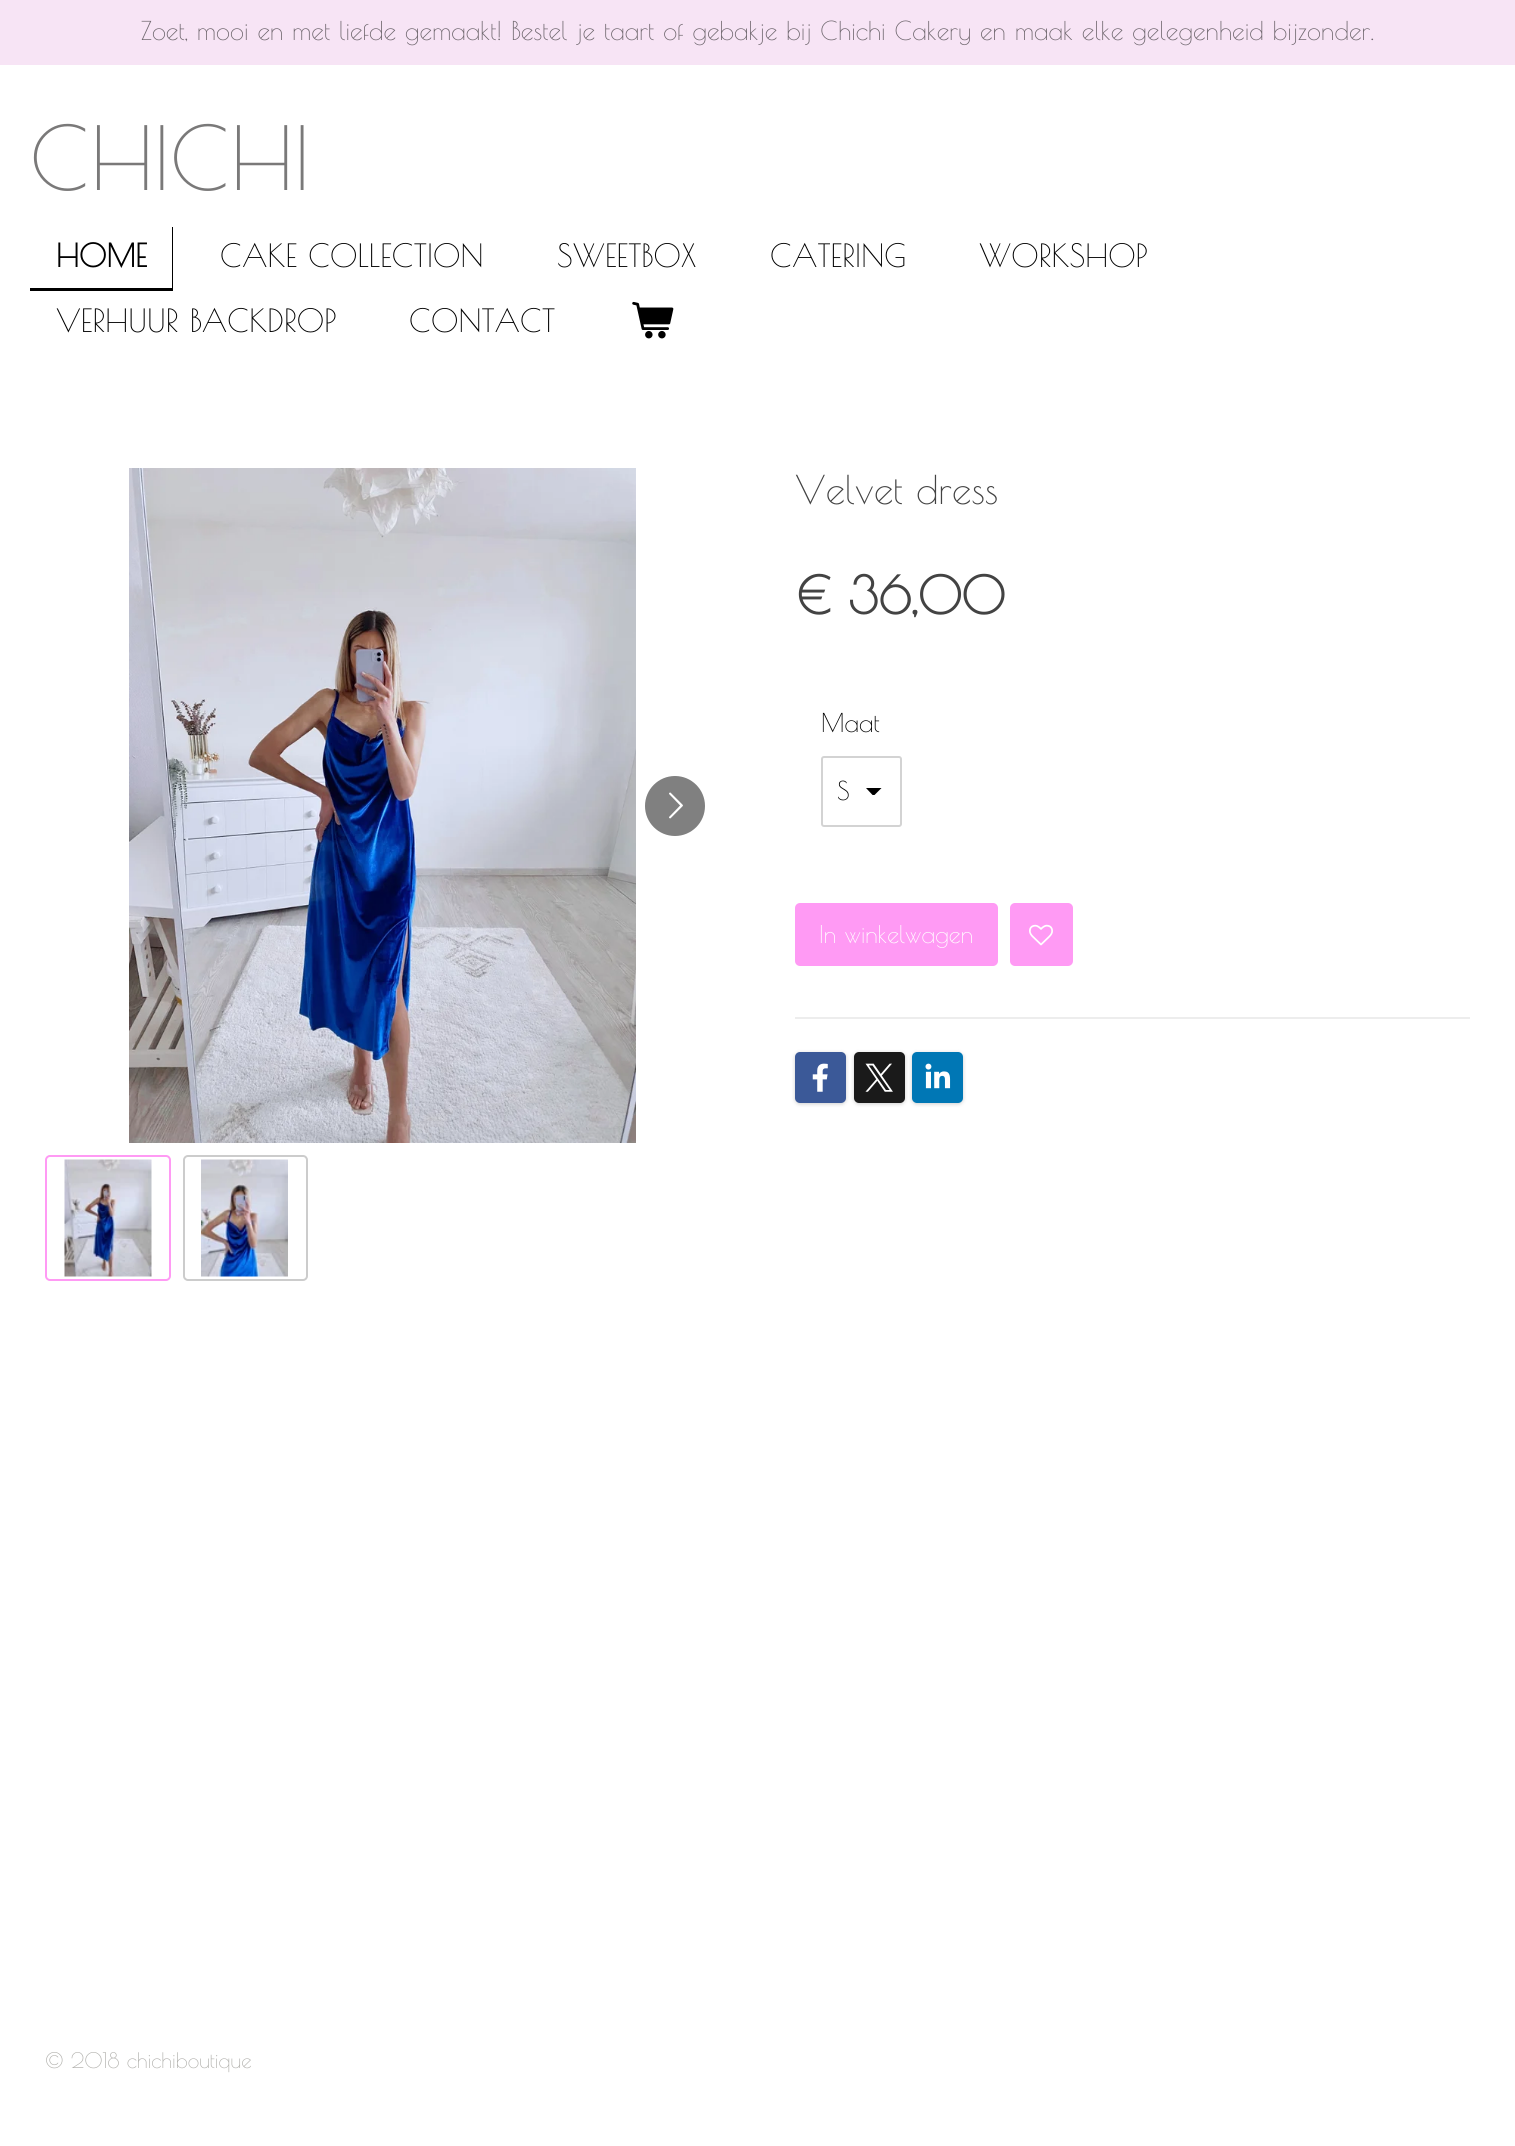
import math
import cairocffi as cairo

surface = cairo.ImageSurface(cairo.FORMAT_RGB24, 1515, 2146)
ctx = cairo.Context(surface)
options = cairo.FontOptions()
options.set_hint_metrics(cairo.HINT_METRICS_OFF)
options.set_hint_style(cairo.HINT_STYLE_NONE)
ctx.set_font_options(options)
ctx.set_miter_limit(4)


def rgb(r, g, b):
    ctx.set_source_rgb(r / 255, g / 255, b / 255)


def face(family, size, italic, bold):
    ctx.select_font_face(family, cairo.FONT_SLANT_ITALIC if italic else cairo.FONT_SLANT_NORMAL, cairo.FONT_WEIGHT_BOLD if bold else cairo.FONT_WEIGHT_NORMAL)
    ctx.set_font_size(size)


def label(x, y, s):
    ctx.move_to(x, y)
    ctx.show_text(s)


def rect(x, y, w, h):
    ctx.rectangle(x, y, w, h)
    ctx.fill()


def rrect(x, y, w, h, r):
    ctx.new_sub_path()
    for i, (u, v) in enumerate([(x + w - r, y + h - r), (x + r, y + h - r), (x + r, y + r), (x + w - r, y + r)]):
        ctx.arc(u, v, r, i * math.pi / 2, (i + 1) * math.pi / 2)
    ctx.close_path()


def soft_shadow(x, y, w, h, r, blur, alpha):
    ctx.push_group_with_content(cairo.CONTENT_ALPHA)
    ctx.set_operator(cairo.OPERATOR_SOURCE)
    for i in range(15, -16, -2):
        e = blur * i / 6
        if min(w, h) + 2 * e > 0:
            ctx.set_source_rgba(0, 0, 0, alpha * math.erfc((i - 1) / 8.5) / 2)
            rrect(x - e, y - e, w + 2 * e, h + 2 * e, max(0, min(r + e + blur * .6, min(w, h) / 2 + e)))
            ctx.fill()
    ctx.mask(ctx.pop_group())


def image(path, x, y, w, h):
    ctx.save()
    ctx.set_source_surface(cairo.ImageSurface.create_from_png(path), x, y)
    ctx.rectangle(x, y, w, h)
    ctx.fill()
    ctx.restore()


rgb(255, 255, 255)
ctx.paint()
rgb(247, 228, 245)
rect(0, 0, 1515, 65)
face('Poiret One', 25.5, 0, 0)
rgb(111, 103, 110)
label(141, 40, 'Zoet, mooi en met liefde gemaakt! Bestel je taart of gebakje bij Chichi Cakery en maak elke gelegenheid bijzonder.')
face('Poiret One', 86.5, 0, 0)
rgb(122, 121, 121)
label(30, 190, 'CHICHI')
rgb(0, 0, 0)
ctx.new_path()
ctx.move_to(30, 288)
ctx.line_to(30, 291)
ctx.line_to(173, 291)
ctx.line_to(173, 227)
ctx.line_to(172, 227)
ctx.line_to(172, 288)
ctx.close_path()
ctx.fill()
face('Poiret One', 31.5, 0, 1)
label(56, 267, 'HOME')
face('Poiret One', 31.5, 0, 0)
label(220, 267, 'CAKE COLLECTION')
label(557, 267, 'SWEETBOX')
label(770, 267, 'CATERING')
label(979, 267, 'WORKSHOP')
label(56, 332, 'VERHUUR BACKDROP')
label(409, 332, 'CONTACT')
image('image0.png', 632, 301, 42, 38)
image('image1.png', 129, 468, 507, 675)
rgb(128, 128, 128)
ctx.arc(675, 806, 30, 0, 2 * math.pi)
ctx.fill()
image('image2.png', 669, 792, 14, 27)
rrect(46, 1156, 124, 124, 4)
rgb(255, 154, 244)
ctx.stroke()
image('image3.png', 64, 1159, 88, 118)
rrect(184, 1156, 123, 124, 4)
rgb(204, 204, 204)
ctx.stroke()
image('image4.png', 201, 1159, 87, 118)
face('Poiret One', 39, 0, 0)
rgb(67, 67, 67)
label(795, 504, 'Velvet dress')
face('Poiret One', 51, 0, 1)
label(795, 614, '€ 36,00')
face('Poiret One', 25.5, 0, 0)
rgb(0, 0, 0)
label(821, 732, 'Maat')
ctx.save()
ctx.rectangle(866, 788, 16, 7)
ctx.clip()
ctx.new_path()
ctx.move_to(873.5, 796)
ctx.line_to(866, 788)
ctx.line_to(881.5, 788)
ctx.close_path()
ctx.fill()
ctx.restore()
rrect(822, 757, 79, 69, 2)
rgb(211, 211, 211)
ctx.stroke()
rgb(0, 0, 0)
label(837, 800, 'S')
rgb(255, 154, 244)
rrect(795, 903, 203, 63, 5)
ctx.fill()
face('Poiret One', 24, 0, 0)
rgb(255, 255, 255)
label(819, 943, 'In winkelwagen')
rgb(255, 154, 244)
rrect(1010, 903, 63, 63, 5)
ctx.fill()
image('image5.png', 1029, 924, 24, 22)
rgb(237, 237, 237)
rect(795, 1017, 675, 2)
rgb(0, 0, 0)
soft_shadow(795, 1053, 51, 51, 5, 2, 0.2)
rgb(59, 89, 152)
rrect(795, 1052, 51, 51, 5)
ctx.fill()
image('image6.png', 812, 1063, 16, 29)
rgb(0, 0, 0)
soft_shadow(854, 1053, 51, 51, 5, 2, 0.2)
rgb(26, 26, 26)
rrect(854, 1052, 51, 51, 5)
ctx.fill()
image('image7.png', 865, 1063, 28, 29)
rgb(0, 0, 0)
soft_shadow(912, 1053, 51, 51, 5, 2, 0.2)
rgb(0, 119, 181)
rrect(912, 1052, 51, 51, 5)
ctx.fill()
image('image8.png', 925, 1063, 26, 26)
face('Poiret One', 21, 0, 0)
rgb(177, 176, 172)
label(45, 2068, '© 2018 chichiboutique')
surface.write_to_png('render.png')
